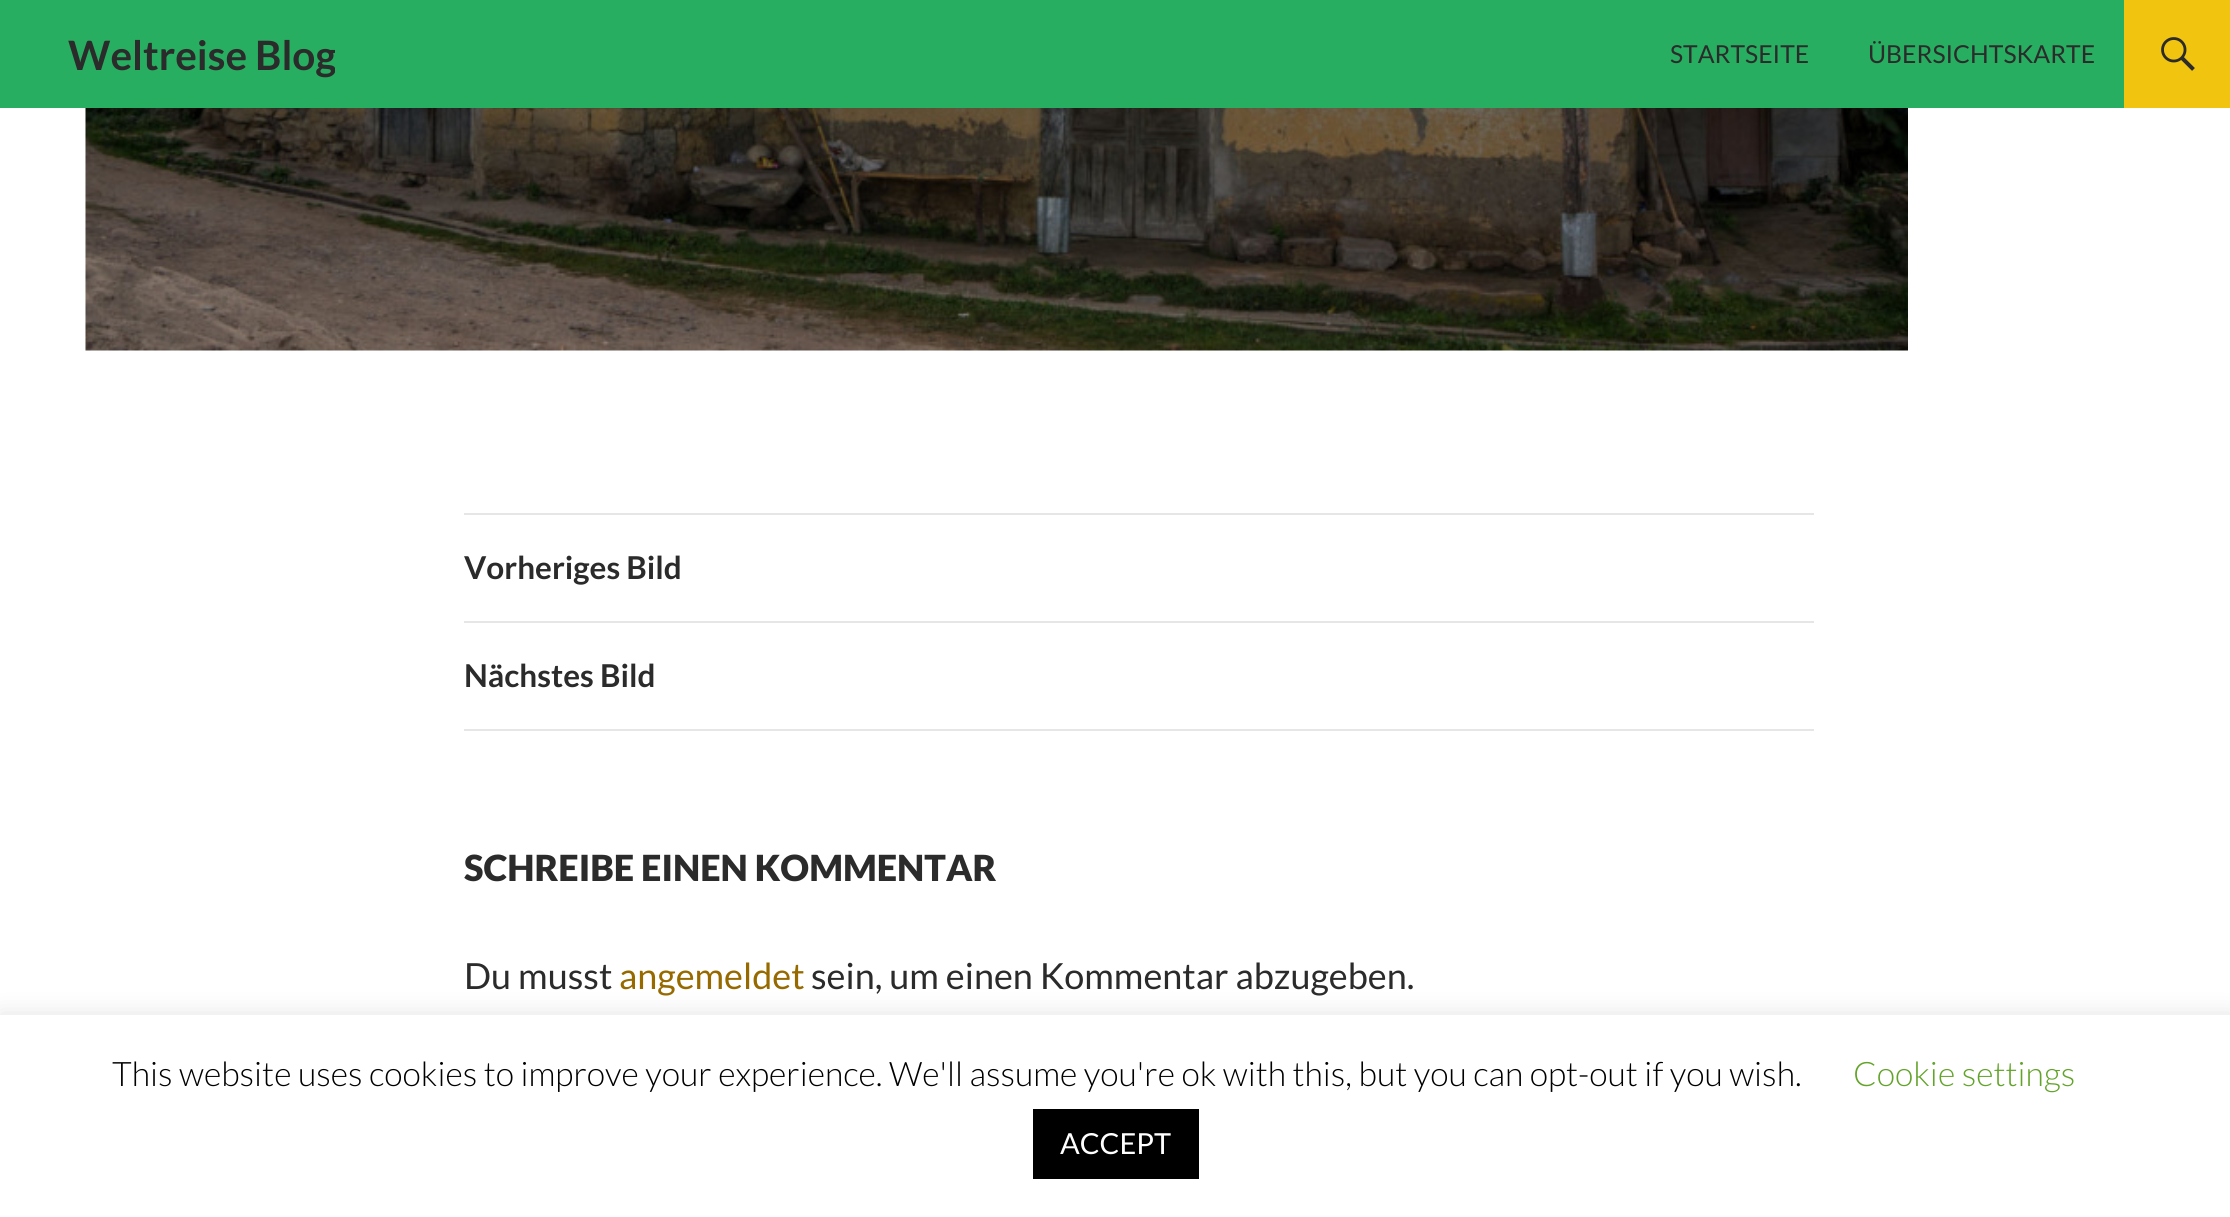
import math
import cairocffi as cairo

surface = cairo.ImageSurface(cairo.FORMAT_RGB24, 2230, 1217)
ctx = cairo.Context(surface)
options = cairo.FontOptions()
options.set_hint_metrics(cairo.HINT_METRICS_OFF)
options.set_hint_style(cairo.HINT_STYLE_NONE)
ctx.set_font_options(options)
ctx.set_miter_limit(4)


def rgb(r, g, b):
    ctx.set_source_rgb(r / 255, g / 255, b / 255)


def face(family, size, italic, bold):
    ctx.select_font_face(family, cairo.FONT_SLANT_ITALIC if italic else cairo.FONT_SLANT_NORMAL, cairo.FONT_WEIGHT_BOLD if bold else cairo.FONT_WEIGHT_NORMAL)
    ctx.set_font_size(size)


def label(x, y, s):
    ctx.move_to(x, y)
    ctx.show_text(s)


def rect(x, y, w, h):
    ctx.rectangle(x, y, w, h)
    ctx.fill()


def rrect(x, y, w, h, r):
    ctx.new_sub_path()
    for i, (u, v) in enumerate([(x + w - r, y + h - r), (x + r, y + h - r), (x + r, y + r), (x + w - r, y + r)]):
        ctx.arc(u, v, r, i * math.pi / 2, (i + 1) * math.pi / 2)
    ctx.close_path()


def soft_shadow(x, y, w, h, r, blur, alpha):
    ctx.push_group_with_content(cairo.CONTENT_ALPHA)
    ctx.set_operator(cairo.OPERATOR_SOURCE)
    for i in range(15, -16, -2):
        e = blur * i / 6
        if min(w, h) + 2 * e > 0:
            ctx.set_source_rgba(0, 0, 0, alpha * math.erfc((i - 1) / 8.5) / 2)
            rrect(x - e, y - e, w + 2 * e, h + 2 * e, max(0, min(r + e + blur * .6, min(w, h) / 2 + e)))
            ctx.fill()
    ctx.mask(ctx.pop_group())


def image(path, x, y, w, h):
    ctx.save()
    ctx.set_source_surface(cairo.ImageSurface.create_from_png(path), x, y)
    ctx.rectangle(x, y, w, h)
    ctx.fill()
    ctx.restore()


rgb(255, 255, 255)
ctx.paint()
rgb(39, 174, 96)
rect(0, 0, 2124, 108)
ctx.save()
ctx.rectangle(68, 0, 267, 108)
ctx.clip()
face('Lato', 40.5, 0, 1)
rgb(43, 43, 43)
label(68, 70, 'Weltreise Blog')
ctx.restore()
face('Lato', 24.75, 0, 0)
rgb(43, 43, 43)
label(1670, 63, 'STARTSEITE')
label(1868, 63, 'ÜBERSICHTSKARTE')
rgb(241, 196, 15)
rect(2124, 0, 106, 108)
image('image0.png', 2161, 37, 34, 34)
image('image1.png', 85, 108, 1823, 243)
rgb(230, 230, 230)
rect(464, 513, 1350, 2)
rect(464, 621, 1350, 2)
face('Lato', 31.5, 0, 1)
rgb(43, 43, 43)
label(464, 579, 'Vorheriges Bild')
rgb(230, 230, 230)
rect(464, 729, 1350, 2)
rgb(43, 43, 43)
label(464, 687, 'Nächstes Bild')
face('Lato Black', 36, 0, 0)
label(464, 881, 'SCHREIBE EINEN KOMMENTAR')
face('Lato', 36, 0, 0)
label(464, 989, 'Du musst')
rgb(151, 106, 0)
label(619, 989, 'angemeldet')
rgb(43, 43, 43)
label(811, 989, 'sein, um einen Kommentar abzugeben.')
rgb(172, 171, 171)
soft_shadow(0, 1013, 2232, 202, 0, 11, 0.3)
rgb(255, 255, 255)
rect(0, 1015, 2230, 202)
face('Lato Light', 33.75, 0, 0)
rgb(0, 0, 0)
label(112, 1086, 'This website uses cookies to improve your experience. We\'ll assume you\'re ok with this, but you can opt-out if you wish.')
rgb(98, 163, 41)
label(1853, 1086, 'Cookie settings')
rgb(0, 0, 0)
rect(1033, 1109, 166, 70)
face('Lato', 29, 0, 0)
rgb(255, 255, 255)
label(1060, 1154, 'ACCEPT')
surface.write_to_png('render.png')
